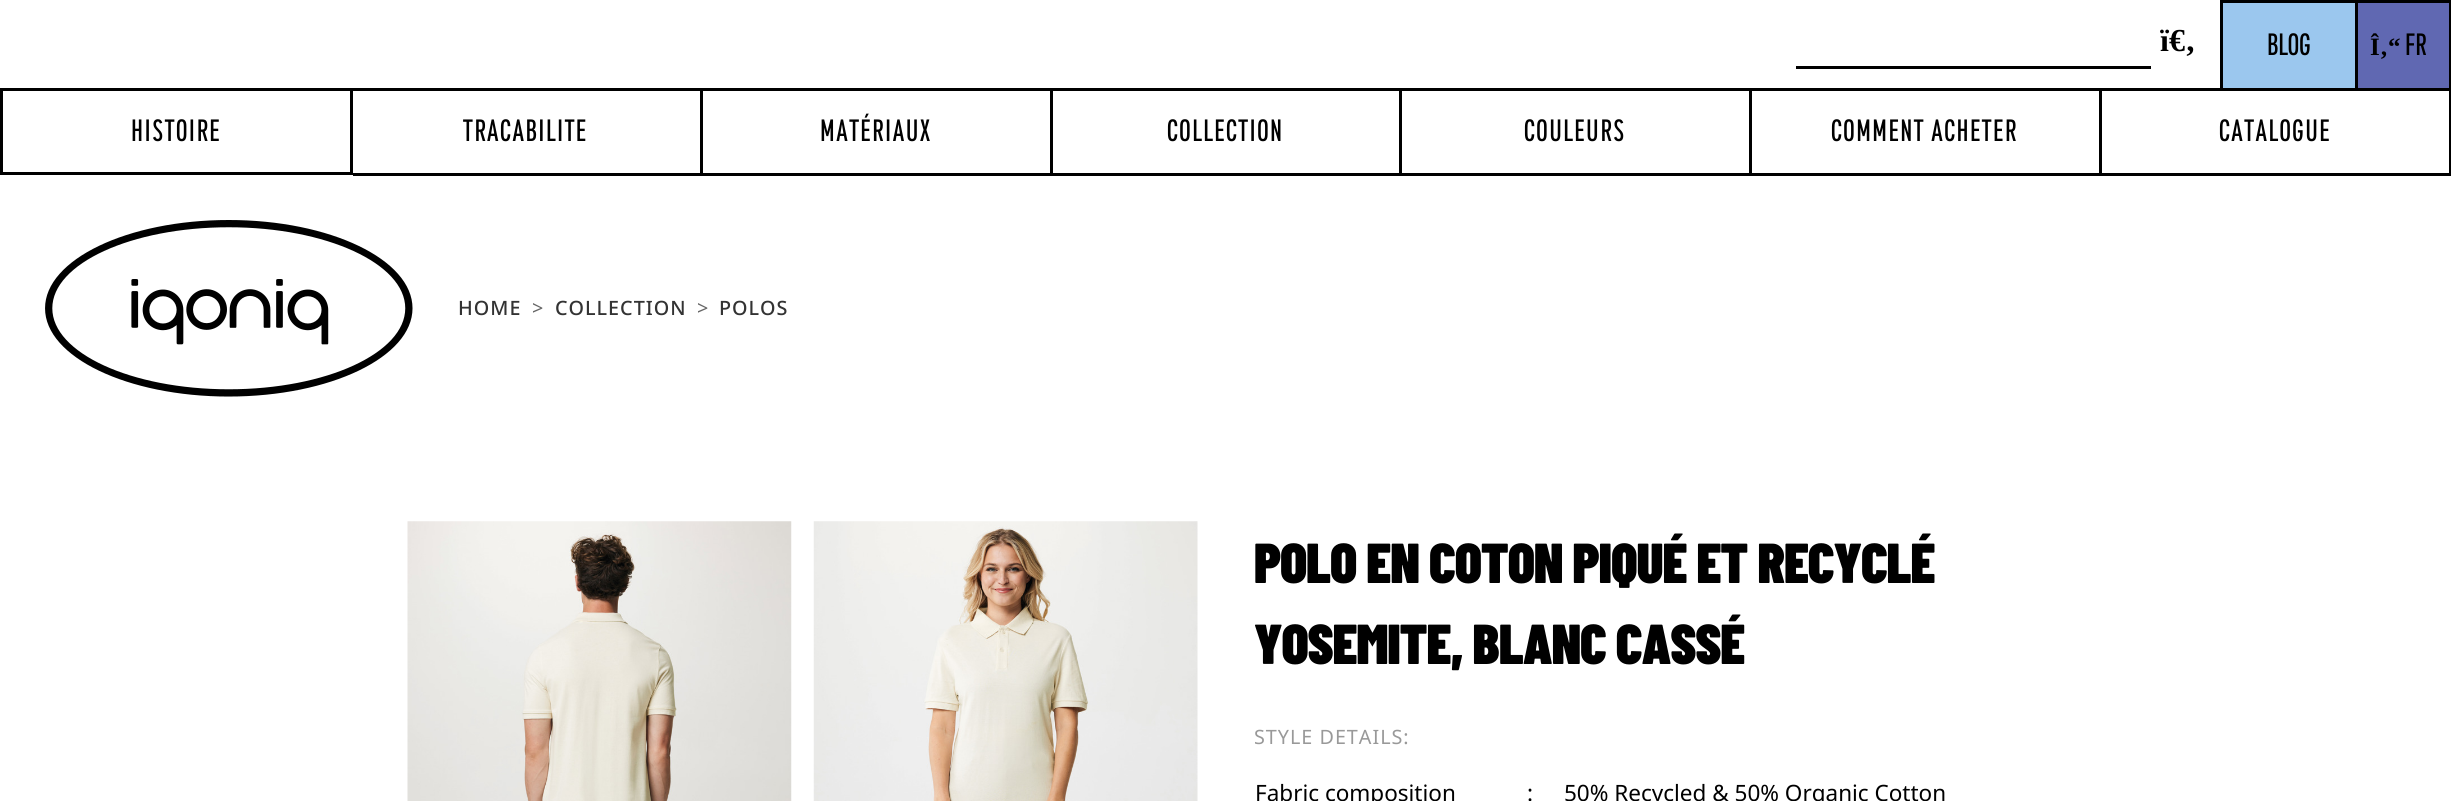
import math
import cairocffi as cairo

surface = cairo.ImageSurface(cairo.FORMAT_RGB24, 2451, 801)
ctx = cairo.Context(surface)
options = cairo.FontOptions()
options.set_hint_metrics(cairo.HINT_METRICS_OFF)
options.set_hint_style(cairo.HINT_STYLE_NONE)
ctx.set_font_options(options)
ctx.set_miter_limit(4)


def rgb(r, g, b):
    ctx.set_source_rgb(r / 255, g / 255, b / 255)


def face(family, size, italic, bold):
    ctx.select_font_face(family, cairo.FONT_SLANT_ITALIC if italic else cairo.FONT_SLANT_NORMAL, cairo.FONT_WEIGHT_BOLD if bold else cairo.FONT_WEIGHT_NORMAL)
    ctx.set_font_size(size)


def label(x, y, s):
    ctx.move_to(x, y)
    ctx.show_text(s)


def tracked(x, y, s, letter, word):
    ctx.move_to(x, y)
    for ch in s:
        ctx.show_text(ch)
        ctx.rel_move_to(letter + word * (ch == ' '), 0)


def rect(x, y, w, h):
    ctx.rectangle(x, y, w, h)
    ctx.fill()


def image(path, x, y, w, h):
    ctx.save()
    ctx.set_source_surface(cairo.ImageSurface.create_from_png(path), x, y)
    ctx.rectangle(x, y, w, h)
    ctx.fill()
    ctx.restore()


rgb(255, 255, 255)
ctx.paint()
face('Liberation Serif', 32, 0, 1)
rgb(0, 0, 0)
label(2160, 51, 'ï€‚')
rect(1796, 66, 355, 3)
rgb(155, 199, 238)
rect(2223, 3, 132, 85)
rgb(0, 0, 0)
rect(2220, 0, 231, 3)
rect(2220, 0, 3, 88)
face('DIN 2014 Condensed', 31.25, 0, 0)
label(2267, 55, 'BLOG')
rgb(96, 104, 178)
rect(2358, 3, 91, 85)
rgb(0, 0, 0)
rect(2449, 0, 2, 88)
rect(2355, 0, 3, 88)
face('Liberation Serif', 25, 0, 1)
label(2370, 55, 'Î‚“')
face('DIN 2014 Condensed', 31.25, 0, 0)
label(2405, 55, 'FR')
ctx.rectangle(1.5, 89.5, 350, 84)
ctx.set_line_width(3)
ctx.stroke()
tracked(131, 141, 'HISTOIRE', 1.5, 0)
rect(353, 88, 1048, 3)
rect(700, 88, 3, 87)
rect(353, 173, 350, 3)
tracked(463, 141, 'TRACABILITE', 1.5, 0)
rect(1050, 88, 3, 87)
rect(703, 173, 350, 3)
tracked(820, 141, 'MATÉRIAUX', 1.5, 0)
rect(1399, 88, 3, 87)
rect(1053, 173, 348, 3)
tracked(1167, 141, 'COLLECTION', 1.5, 0)
rect(1401, 88, 350, 3)
rect(1749, 88, 3, 87)
rect(1401, 173, 350, 3)
tracked(1524, 141, 'COULEURS', 1.5, 0)
rect(1751, 88, 350, 3)
rect(2099, 88, 3, 87)
rect(1751, 173, 350, 3)
tracked(1831, 141, 'COMMENT ACHETER', 1.5, 0)
rect(2101, 88, 350, 3)
rect(2449, 88, 2, 87)
rect(2101, 173, 350, 3)
tracked(2219, 141, 'CATALOGUE', 1.5, 0)
image('image0.png', 45, 220, 368, 177)
face('Noto Sans Medium', 19.75, 0, 0)
rgb(51, 51, 51)
tracked(458, 315, 'HOME', 1, 0)
face('Noto Sans', 19.75, 0, 0)
rgb(102, 102, 102)
label(532, 315, '>')
face('Noto Sans Medium', 19.75, 0, 0)
rgb(51, 51, 51)
tracked(555, 315, 'COLLECTION', 1, 0)
face('Noto Sans', 19.75, 0, 0)
rgb(102, 102, 102)
label(697, 315, '>')
face('Noto Sans Medium', 19.75, 0, 0)
rgb(51, 51, 51)
tracked(719, 315, 'POLOS', 1, 0)
image('image1.png', 407, 521, 385, 280)
image('image2.png', 813, 521, 385, 280)
face('Barlow Condensed Black', 56.25, 0, 0)
rgb(0, 0, 0)
tracked(1254, 583, 'POLO EN COTON PIQUÉ ET RECYCLÉ', -1.1, 0)
tracked(1254, 664, 'YOSEMITE, BLANC CASSÉ', -1.1, 0)
face('Noto Sans', 19.75, 0, 0)
rgb(153, 153, 153)
tracked(1254, 744, 'STYLE DETAILS:', 1, 0)
face('Noto Sans', 22.5, 0, 0)
rgb(0, 0, 0)
label(1255, 801, 'Fabric composition')
label(1527, 801, ':')
label(1564, 801, '50% Recycled & 50% Organic Cotton')
surface.write_to_png('render.png')
